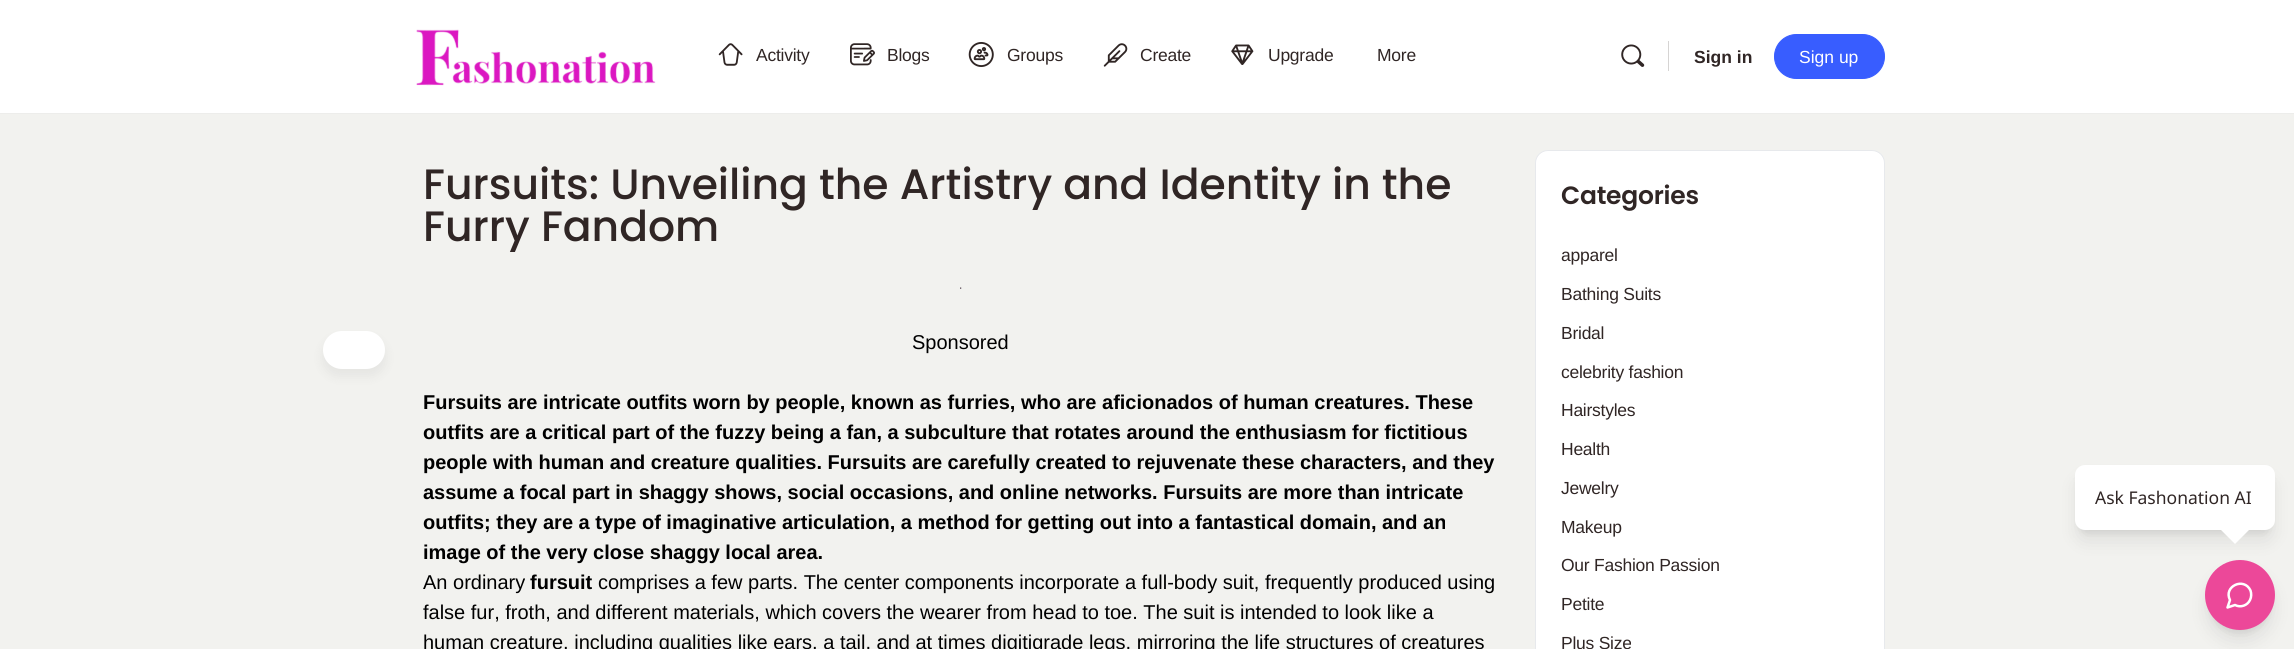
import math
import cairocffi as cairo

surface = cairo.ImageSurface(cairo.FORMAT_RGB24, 2294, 649)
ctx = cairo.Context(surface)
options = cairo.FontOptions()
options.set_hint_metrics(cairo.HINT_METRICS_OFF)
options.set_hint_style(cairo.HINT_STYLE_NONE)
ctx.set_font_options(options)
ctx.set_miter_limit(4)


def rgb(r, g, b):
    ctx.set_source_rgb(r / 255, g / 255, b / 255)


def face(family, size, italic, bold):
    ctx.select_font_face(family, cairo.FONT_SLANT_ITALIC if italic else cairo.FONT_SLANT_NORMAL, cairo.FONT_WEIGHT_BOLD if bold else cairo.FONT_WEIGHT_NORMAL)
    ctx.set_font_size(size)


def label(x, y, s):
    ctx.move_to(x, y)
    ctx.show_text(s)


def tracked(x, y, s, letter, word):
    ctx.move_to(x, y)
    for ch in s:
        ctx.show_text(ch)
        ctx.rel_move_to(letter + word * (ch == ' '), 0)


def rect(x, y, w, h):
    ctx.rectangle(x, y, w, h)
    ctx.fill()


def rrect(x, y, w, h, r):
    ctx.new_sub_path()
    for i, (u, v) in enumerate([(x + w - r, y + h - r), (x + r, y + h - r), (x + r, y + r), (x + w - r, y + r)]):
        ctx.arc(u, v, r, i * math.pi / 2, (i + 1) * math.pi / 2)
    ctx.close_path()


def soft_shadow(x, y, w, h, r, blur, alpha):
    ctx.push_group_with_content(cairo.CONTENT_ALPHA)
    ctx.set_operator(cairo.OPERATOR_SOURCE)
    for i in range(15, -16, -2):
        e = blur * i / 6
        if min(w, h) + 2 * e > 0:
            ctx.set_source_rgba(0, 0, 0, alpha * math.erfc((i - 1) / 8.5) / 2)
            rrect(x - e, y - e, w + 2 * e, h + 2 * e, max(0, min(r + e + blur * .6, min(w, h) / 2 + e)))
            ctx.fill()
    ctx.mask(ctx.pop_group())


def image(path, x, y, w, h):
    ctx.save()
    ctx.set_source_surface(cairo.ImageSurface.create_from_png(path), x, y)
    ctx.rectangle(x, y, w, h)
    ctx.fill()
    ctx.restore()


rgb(242, 242, 239)
ctx.paint()
rgb(237, 237, 235)
rect(0, 113, 2294, 1)
rgb(255, 255, 255)
rect(0, 0, 2294, 113)
image('image0.png', 416, 29, 240, 57)
image('image1.png', 718, 43, 25, 23)
face('Liberation Sans', 17.5, 0, 0)
rgb(48, 38, 37)
tracked(756, 61, 'Activity', -0.25, 0)
image('image2.png', 850, 43, 25, 23)
tracked(887, 61, 'Blogs', -0.25, 0)
image('image3.png', 968, 42, 26, 25)
tracked(1007, 61, 'Groups', -0.25, 0)
image('image4.png', 1103, 43, 25, 24)
tracked(1140, 61, 'Create', -0.25, 0)
image('image5.png', 1231, 44, 23, 21)
tracked(1268, 61, 'Upgrade', -0.25, 0)
tracked(1377, 61, 'More', -0.25, 0)
image('image6.png', 1621, 44, 24, 23)
rgb(214, 212, 211)
rect(1668, 41, 1, 30)
face('Liberation Sans', 17.5, 0, 1)
rgb(48, 38, 37)
label(1694, 63, 'Sign in')
rgb(56, 93, 255)
rrect(1774.5, 34.5, 110, 44, 22)
ctx.fill_preserve()
ctx.set_line_width(1)
ctx.stroke()
face('Liberation Sans', 17.5, 0, 0)
rgb(255, 255, 255)
label(1799, 63, 'Sign up')
rgb(0, 0, 0)
soft_shadow(323, 339, 62, 37, 18.5, 6, 0.06)
rgb(255, 255, 255)
rrect(323, 331, 62, 38, 19)
ctx.fill()
face('Poppins Medium', 42.5, 0, 0)
rgb(48, 38, 37)
label(423, 199, 'Fursuits: Unveiling the Artistry and Identity in the')
label(423, 241, 'Furry Fandom')
image('image7.png', 960, 287, 2, 2)
face('Liberation Sans', 20, 0, 0)
rgb(0, 0, 0)
label(912, 349, 'Sponsored')
face('Liberation Sans', 20, 0, 1)
label(423, 409, 'Fursuits are intricate outfits worn by people, known as furries, who are aficionados of human creatures. These')
label(423, 439, 'outfits are a critical part of the fuzzy being a fan, a subculture that rotates around the enthusiasm for fictitious')
label(423, 469, 'people with human and creature qualities. Fursuits are carefully created to rejuvenate these characters, and they')
label(423, 499, 'assume a focal part in shaggy shows, social occasions, and online networks. Fursuits are more than intricate')
label(423, 529, 'outfits; they are a type of imaginative articulation, a method for getting out into a fantastical domain, and an')
label(423, 559, 'image of the very close shaggy local area.')
face('Liberation Sans', 20, 0, 0)
label(423, 589, 'An ordinary')
face('Liberation Sans', 20, 0, 1)
label(530, 589, 'fursuit')
face('Liberation Sans', 20, 0, 0)
label(598, 589, 'comprises a few parts. The center components incorporate a full-body suit, frequently produced using')
label(423, 619, 'false fur, froth, and different materials, which covers the wearer from head to toe. The suit is intended to look like a')
label(423, 649, 'human creature, including qualities like ears, a tail, and at times digitigrade legs, mirroring the life structures of creatures')
rgb(255, 255, 255)
rrect(1535.5, 150.5, 349, 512, 12.5)
ctx.fill_preserve()
rgb(231, 233, 236)
ctx.stroke()
face('Poppins SemiBold', 25, 0, 0)
rgb(48, 38, 37)
tracked(1561, 204, 'Categories', -0.25, 0)
face('Liberation Sans', 17.5, 0, 0)
tracked(1561, 261, 'apparel', -0.25, 0)
tracked(1561, 300, 'Bathing Suits', -0.25, 0)
tracked(1561, 339, 'Bridal', -0.25, 0)
tracked(1561, 378, 'celebrity fashion', -0.25, 0)
tracked(1561, 416, 'Hairstyles', -0.25, 0)
tracked(1561, 455, 'Health', -0.25, 0)
tracked(1561, 494, 'Jewelry', -0.25, 0)
tracked(1561, 533, 'Makeup', -0.25, 0)
tracked(1561, 571, 'Our Fashion Passion', -0.25, 0)
tracked(1561, 610, 'Petite', -0.25, 0)
tracked(1561, 649, 'Plus Size', -0.25, 0)
rgb(0, 0, 0)
soft_shadow(2080, 475, 190, 55, 5, 4, 0.1)
soft_shadow(2210, 570, 60, 60, 30, 4, 0.1)
soft_shadow(2209, 576, 62, 63, 31, 9.5, 0.1)
rgb(236, 72, 153)
ctx.arc(2240, 595, 35, 0, 2 * math.pi)
ctx.fill()
rgb(0, 0, 0)
soft_shadow(2079, 481, 192, 58, 6, 9.5, 0.1)
rgb(255, 255, 255)
rrect(2075, 465, 200, 65, 10)
ctx.fill()
face('Noto Sans', 17.5, 0, 0)
rgb(48, 38, 37)
label(2095, 504, 'Ask Fashonation AI')
rgb(255, 255, 255)
ctx.new_path()
ctx.move_to(2235, 516)
ctx.line_to(2249, 530)
ctx.line_to(2235, 544)
ctx.line_to(2221, 530)
ctx.close_path()
ctx.fill()
ctx.new_path()
ctx.move_to(2235, 605)
ctx.curve_to(2240.5, 608, 2247.5, 605.5, 2250, 600)
ctx.curve_to(2251.5, 597, 2251.5, 593.5, 2250.5, 590.5)
ctx.curve_to(2244, 576.5, 2223, 586.5, 2230, 600)
ctx.line_to(2227.5, 607.5)
ctx.close_path()
ctx.set_line_width(2.5)
ctx.set_line_cap(cairo.LINE_CAP_ROUND)
ctx.set_line_join(cairo.LINE_JOIN_ROUND)
ctx.stroke()
surface.write_to_png('render.png')
